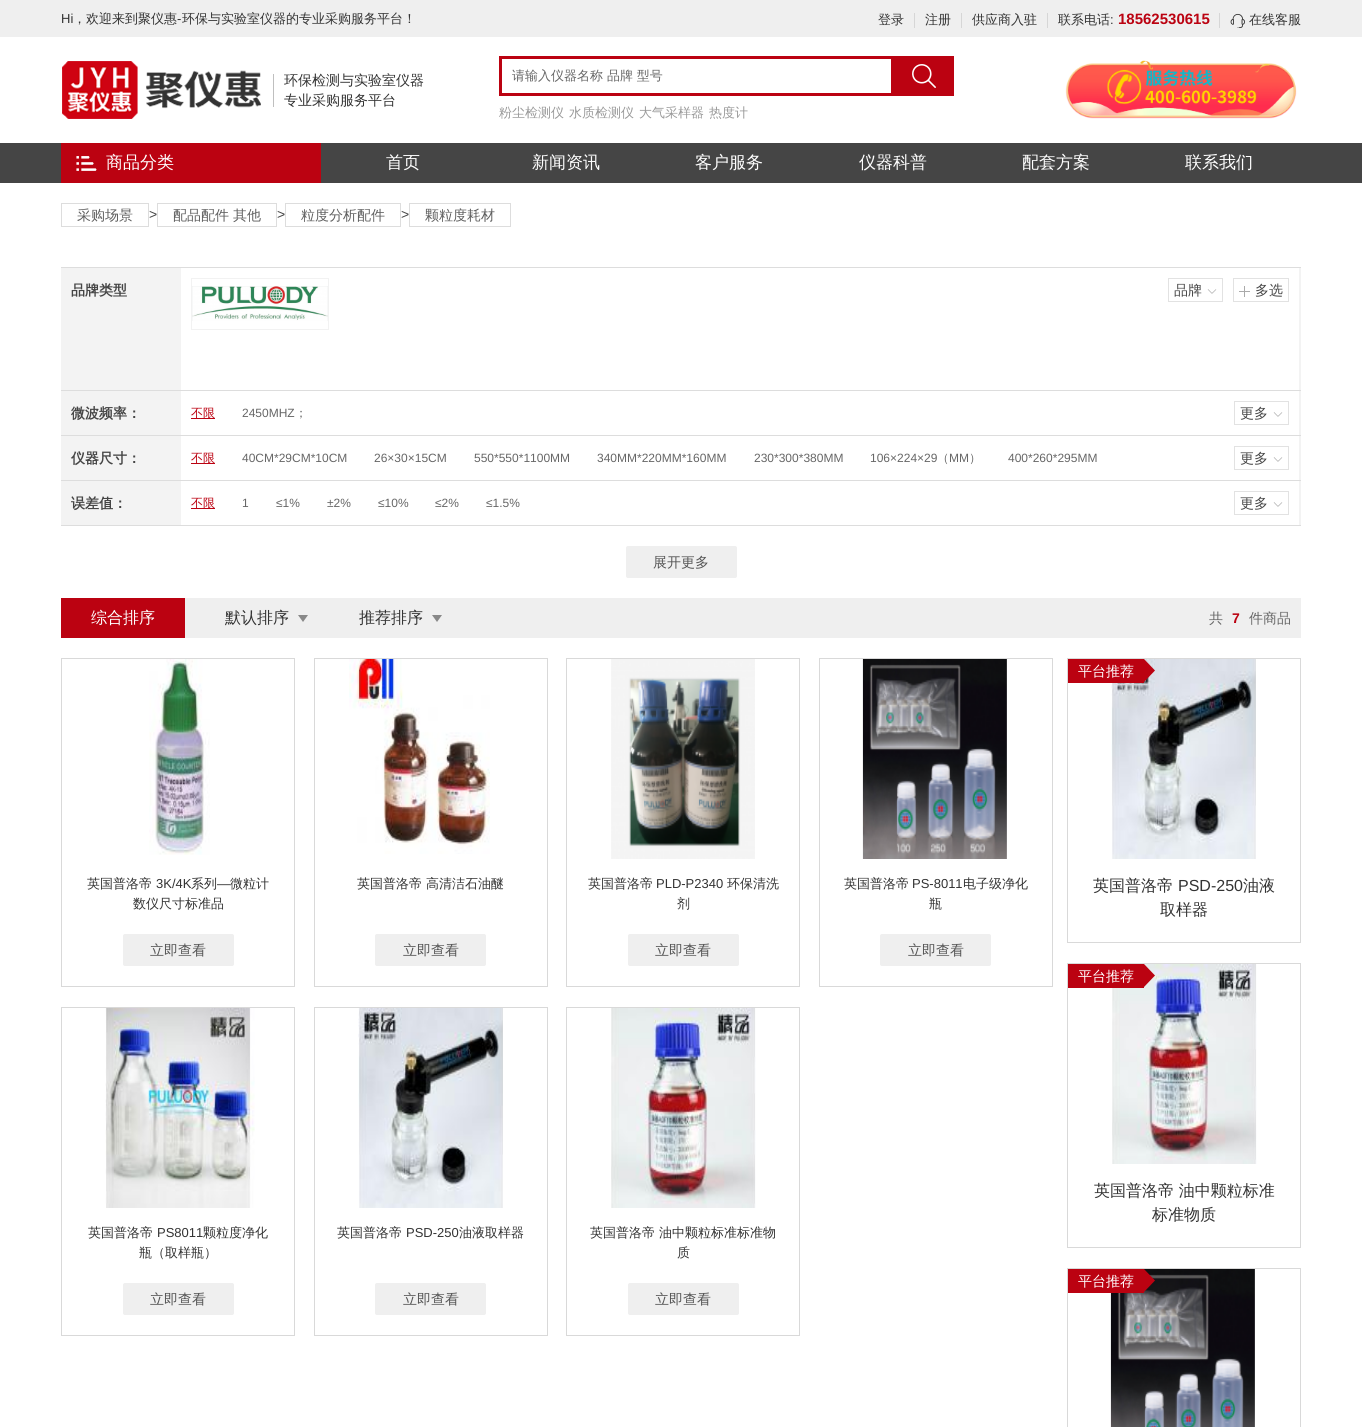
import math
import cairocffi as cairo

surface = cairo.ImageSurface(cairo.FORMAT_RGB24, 1362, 1427)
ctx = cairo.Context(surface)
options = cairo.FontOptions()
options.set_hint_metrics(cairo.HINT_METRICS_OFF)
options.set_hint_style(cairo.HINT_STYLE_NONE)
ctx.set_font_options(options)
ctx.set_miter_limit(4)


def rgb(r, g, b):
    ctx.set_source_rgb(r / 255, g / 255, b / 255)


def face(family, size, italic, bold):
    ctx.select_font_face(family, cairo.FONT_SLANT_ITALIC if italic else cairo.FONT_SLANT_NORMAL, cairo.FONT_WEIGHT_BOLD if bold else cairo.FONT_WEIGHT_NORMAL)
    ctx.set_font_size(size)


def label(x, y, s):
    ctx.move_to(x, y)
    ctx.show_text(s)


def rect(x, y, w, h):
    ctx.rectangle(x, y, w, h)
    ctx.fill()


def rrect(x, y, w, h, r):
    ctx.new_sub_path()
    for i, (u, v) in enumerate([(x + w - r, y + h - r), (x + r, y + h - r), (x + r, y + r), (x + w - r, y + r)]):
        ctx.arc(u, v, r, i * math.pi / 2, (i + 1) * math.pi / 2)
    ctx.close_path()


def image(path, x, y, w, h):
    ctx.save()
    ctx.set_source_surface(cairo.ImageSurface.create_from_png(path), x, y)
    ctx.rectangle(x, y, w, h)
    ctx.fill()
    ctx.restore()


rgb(255, 255, 255)
ctx.paint()
rgb(239, 239, 239)
rect(0, 0, 1362, 37)
face('Liberation Sans', 13, 0, 0)
rgb(51, 51, 51)
label(61, 23, 'Hi')
face('WenQuanYi Zen Hei Medium', 13, 0, 0)
label(73, 23, '，欢迎来到聚仪惠')
face('Liberation Sans', 13, 0, 0)
label(177, 23, '-')
face('WenQuanYi Zen Hei Medium', 13, 0, 0)
label(182, 23, '环保与实验室仪器的专业采购服务平台！')
label(878, 24, '登录')
rgb(214, 214, 214)
rect(914, 13, 1, 15)
rgb(51, 51, 51)
label(925, 24, '注册')
rgb(214, 214, 214)
rect(961, 13, 1, 15)
rgb(51, 51, 51)
label(972, 24, '供应商入驻')
rgb(214, 214, 214)
rect(1047, 13, 1, 15)
rgb(51, 51, 51)
label(1058, 24, '联系电话')
face('Liberation Sans', 13, 0, 0)
label(1110, 24, ':')
face('Liberation Sans', 15, 0, 1)
rgb(187, 2, 17)
label(1118, 24, '18562530615')
rgb(214, 214, 214)
rect(1219, 13, 1, 15)
image('image0.png', 1230, 13, 15, 15)
face('WenQuanYi Zen Hei Medium', 13, 0, 0)
rgb(51, 51, 51)
label(1249, 24, '在线客服')
image('image1.png', 62, 61, 199, 58)
rgb(191, 191, 191)
rect(273, 74, 1, 33)
face('WenQuanYi Zen Hei Medium', 14, 0, 0)
rgb(51, 51, 51)
label(284, 85, '环保检测与实验室仪器')
label(284, 105, '专业采购服务平台')
ctx.rectangle(500.5, 57.5, 392, 37)
rgb(187, 2, 17)
ctx.set_line_width(3)
ctx.stroke()
face('WenQuanYi Zen Hei Medium', 13, 0, 0)
rgb(102, 102, 102)
label(512, 80, '请输入仪器名称 品牌 型号')
rgb(187, 2, 17)
rect(894, 56, 60, 40)
image('image2.png', 912, 64, 24, 24)
rgb(153, 153, 153)
label(499, 117, '粉尘检测仪')
label(569, 117, '水质检测仪')
label(639, 117, '大气采样器')
label(709, 117, '热度计')
image('image3.png', 1065, 60, 232, 59)
rgb(69, 69, 69)
rect(0, 143, 1362, 40)
rgb(187, 2, 17)
rect(61, 143, 260, 40)
image('image4.png', 76, 156, 21, 15)
face('WenQuanYi Zen Hei Medium', 17, 0, 0)
rgb(255, 255, 255)
label(106, 168, '商品分类')
label(386, 168, '首页')
label(532, 168, '新闻资讯')
label(695, 168, '客户服务')
label(859, 168, '仪器科普')
label(1022, 168, '配套方案')
label(1185, 168, '联系我们')
ctx.rectangle(61.5, 203.5, 87, 23)
rgb(221, 221, 221)
ctx.set_line_width(1)
ctx.stroke()
face('WenQuanYi Zen Hei Medium', 14, 0, 0)
rgb(94, 94, 94)
label(77, 220, '采购场景')
face('Liberation Sans', 14, 0, 0)
rgb(69, 69, 69)
label(149, 219, '>')
ctx.rectangle(157.5, 203.5, 119, 23)
rgb(221, 221, 221)
ctx.stroke()
face('WenQuanYi Zen Hei Medium', 14, 0, 0)
rgb(94, 94, 94)
label(173, 220, '配品配件')
label(233, 220, '其他')
face('Liberation Sans', 14, 0, 0)
rgb(69, 69, 69)
label(277, 219, '>')
ctx.rectangle(285.5, 203.5, 115, 23)
rgb(221, 221, 221)
ctx.stroke()
face('WenQuanYi Zen Hei Medium', 14, 0, 0)
rgb(94, 94, 94)
label(301, 220, '粒度分析配件')
face('Liberation Sans', 14, 0, 0)
rgb(69, 69, 69)
label(401, 219, '>')
ctx.rectangle(409.5, 203.5, 101, 23)
rgb(221, 221, 221)
ctx.stroke()
face('WenQuanYi Zen Hei Medium', 14, 0, 0)
rgb(94, 94, 94)
label(425, 220, '颗粒度耗材')
rgb(243, 243, 243)
rect(61, 268, 1240, 122)
rgb(221, 221, 221)
rect(61, 267, 1240, 1)
rect(61, 390, 1240, 1)
face('WenQuanYi Zen Hei', 14, 0, 1)
rgb(69, 69, 69)
label(71, 295, '品牌类型')
rgb(255, 255, 255)
rect(181, 268, 1118, 122)
ctx.rectangle(191.5, 278.5, 137, 51)
rgb(242, 242, 242)
ctx.stroke()
image('image5.png', 192, 286, 136, 35)
ctx.rectangle(1168.5, 278.5, 54, 23)
rgb(226, 226, 226)
ctx.stroke()
face('WenQuanYi Zen Hei Medium', 14, 0, 0)
rgb(69, 69, 69)
label(1174, 295, '品牌')
image('image6.png', 1207, 289, 10, 5)
ctx.rectangle(1233.5, 278.5, 55, 23)
rgb(226, 226, 226)
ctx.stroke()
image('image7.png', 1239, 286, 11, 11)
rgb(69, 69, 69)
label(1255, 295, '多选')
rgb(243, 243, 243)
rect(61, 391, 1240, 44)
rgb(221, 221, 221)
rect(61, 435, 1240, 1)
face('WenQuanYi Zen Hei', 14, 0, 1)
rgb(69, 69, 69)
label(71, 418, '微波频率：')
rgb(255, 255, 255)
rect(181, 391, 1118, 44)
rgb(187, 2, 17)
rect(191, 418, 24, 1)
face('WenQuanYi Zen Hei Medium', 12, 0, 0)
label(191, 417, '不限')
face('Liberation Sans', 12, 0, 0)
rgb(102, 102, 102)
label(242, 417, '2450MHZ')
face('WenQuanYi Zen Hei Medium', 12, 0, 0)
label(295, 417, '；')
ctx.rectangle(1234.5, 401.5, 54, 23)
rgb(226, 226, 226)
ctx.stroke()
face('WenQuanYi Zen Hei Medium', 14, 0, 0)
rgb(69, 69, 69)
label(1240, 418, '更多')
image('image6.png', 1273, 412, 10, 5)
rgb(243, 243, 243)
rect(61, 436, 1240, 44)
rgb(221, 221, 221)
rect(61, 480, 1240, 1)
face('WenQuanYi Zen Hei', 14, 0, 1)
rgb(69, 69, 69)
label(71, 463, '仪器尺寸：')
rgb(255, 255, 255)
rect(181, 436, 1118, 44)
rgb(187, 2, 17)
rect(191, 463, 24, 1)
face('WenQuanYi Zen Hei Medium', 12, 0, 0)
label(191, 462, '不限')
face('Liberation Sans', 12, 0, 0)
rgb(102, 102, 102)
label(242, 462, '40CM*29CM*10CM')
label(374, 462, '26×30×15CM')
label(474, 462, '550*550*1100MM')
label(597, 462, '340MM*220MM*160MM')
label(754, 462, '230*300*380MM')
label(870, 462, '106×224×29')
face('WenQuanYi Zen Hei Medium', 12, 0, 0)
label(937, 462, '（')
face('Liberation Sans', 12, 0, 0)
label(949, 462, 'MM')
face('WenQuanYi Zen Hei Medium', 12, 0, 0)
label(969, 462, '）')
face('Liberation Sans', 12, 0, 0)
label(1008, 462, '400*260*295MM')
ctx.rectangle(1234.5, 446.5, 54, 23)
rgb(226, 226, 226)
ctx.stroke()
face('WenQuanYi Zen Hei Medium', 14, 0, 0)
rgb(69, 69, 69)
label(1240, 463, '更多')
image('image6.png', 1273, 457, 10, 5)
rgb(243, 243, 243)
rect(61, 481, 1240, 44)
rgb(221, 221, 221)
rect(61, 525, 1240, 1)
face('WenQuanYi Zen Hei', 14, 0, 1)
rgb(69, 69, 69)
label(71, 508, '误差值：')
rgb(255, 255, 255)
rect(181, 481, 1118, 44)
rgb(187, 2, 17)
rect(191, 508, 24, 1)
face('WenQuanYi Zen Hei Medium', 12, 0, 0)
label(191, 507, '不限')
face('Liberation Sans', 12, 0, 0)
rgb(102, 102, 102)
label(242, 507, '1')
label(276, 507, '≤1%')
label(327, 507, '±2%')
label(378, 507, '≤10%')
label(435, 507, '≤2%')
label(486, 507, '≤1.5%')
ctx.rectangle(1234.5, 491.5, 54, 23)
rgb(226, 226, 226)
ctx.stroke()
face('WenQuanYi Zen Hei Medium', 14, 0, 0)
rgb(69, 69, 69)
label(1240, 508, '更多')
image('image6.png', 1273, 502, 10, 5)
rgb(239, 239, 239)
rrect(626.5, 546.5, 110, 31, 1.5)
ctx.fill_preserve()
ctx.stroke()
rgb(85, 85, 85)
label(653, 567, '展开更多')
rgb(239, 239, 239)
rect(185, 598, 1116, 40)
rgb(187, 2, 17)
rect(61, 598, 124, 40)
face('WenQuanYi Zen Hei Medium', 16, 0, 0)
rgb(255, 255, 255)
label(91, 623, '综合排序')
image('image8.png', 298, 615, 10, 7)
rgb(51, 51, 51)
label(225, 623, '默认排序')
image('image8.png', 432, 615, 10, 7)
label(359, 623, '推荐排序')
face('WenQuanYi Zen Hei Medium', 14, 0, 0)
rgb(102, 102, 102)
label(1209, 623, '共')
face('Liberation Sans', 14, 0, 1)
rgb(187, 2, 17)
label(1232, 623, '7')
face('WenQuanYi Zen Hei Medium', 14, 0, 0)
rgb(102, 102, 102)
label(1249, 623, '件商品')
ctx.rectangle(61.5, 658.5, 233, 328)
rgb(217, 217, 217)
ctx.stroke()
image('image9.png', 149, 659, 61, 196)
face('WenQuanYi Zen Hei Medium', 13, 0, 0)
rgb(51, 51, 51)
label(87, 888, '英国普洛帝')
face('Liberation Sans', 13, 0, 0)
label(156, 888, '3K/4K')
face('WenQuanYi Zen Hei Medium', 13, 0, 0)
label(191, 888, '系列')
face('Liberation Sans', 13, 0, 0)
label(217, 888, '—')
face('WenQuanYi Zen Hei Medium', 13, 0, 0)
label(230, 888, '微粒计')
label(133, 908, '数仪尺寸标准品')
rgb(239, 239, 239)
rrect(123.5, 934.5, 110, 31, 1.5)
ctx.fill_preserve()
ctx.stroke()
face('WenQuanYi Zen Hei Medium', 14, 0, 0)
rgb(85, 85, 85)
label(150, 955, '立即查看')
ctx.rectangle(314.5, 658.5, 233, 328)
rgb(217, 217, 217)
ctx.stroke()
image('image10.png', 349, 659, 141, 195)
face('WenQuanYi Zen Hei Medium', 13, 0, 0)
rgb(51, 51, 51)
label(357, 888, '英国普洛帝 高清洁石油醚')
rgb(239, 239, 239)
rrect(375.5, 934.5, 110, 31, 1.5)
ctx.fill_preserve()
ctx.stroke()
face('WenQuanYi Zen Hei Medium', 14, 0, 0)
rgb(85, 85, 85)
label(403, 955, '立即查看')
ctx.rectangle(566.5, 658.5, 233, 328)
rgb(217, 217, 217)
ctx.stroke()
image('image11.png', 611, 659, 144, 200)
face('WenQuanYi Zen Hei Medium', 13, 0, 0)
rgb(51, 51, 51)
label(588, 888, '英国普洛帝')
face('Liberation Sans', 13, 0, 0)
label(656, 888, 'PLD-P2340')
face('WenQuanYi Zen Hei Medium', 13, 0, 0)
label(727, 888, '环保清洗')
label(677, 908, '剂')
rgb(239, 239, 239)
rrect(628.5, 934.5, 110, 31, 1.5)
ctx.fill_preserve()
ctx.stroke()
face('WenQuanYi Zen Hei Medium', 14, 0, 0)
rgb(85, 85, 85)
label(655, 955, '立即查看')
ctx.rectangle(819.5, 658.5, 233, 328)
rgb(217, 217, 217)
ctx.stroke()
image('image12.png', 862, 659, 145, 200)
face('WenQuanYi Zen Hei Medium', 13, 0, 0)
rgb(51, 51, 51)
label(844, 888, '英国普洛帝')
face('Liberation Sans', 13, 0, 0)
label(912, 888, 'PS-8011')
face('WenQuanYi Zen Hei Medium', 13, 0, 0)
label(963, 888, '电子级净化')
label(929, 908, '瓶')
rgb(239, 239, 239)
rrect(880.5, 934.5, 110, 31, 1.5)
ctx.fill_preserve()
ctx.stroke()
face('WenQuanYi Zen Hei Medium', 14, 0, 0)
rgb(85, 85, 85)
label(908, 955, '立即查看')
ctx.rectangle(61.5, 1007.5, 233, 328)
rgb(217, 217, 217)
ctx.stroke()
image('image13.png', 105, 1008, 150, 200)
face('WenQuanYi Zen Hei Medium', 13, 0, 0)
rgb(51, 51, 51)
label(88, 1237, '英国普洛帝')
face('Liberation Sans', 13, 0, 0)
label(157, 1237, 'PS8011')
face('WenQuanYi Zen Hei Medium', 13, 0, 0)
label(203, 1237, '颗粒度净化')
label(139, 1257, '瓶（取样瓶）')
rgb(239, 239, 239)
rrect(123.5, 1283.5, 110, 31, 1.5)
ctx.fill_preserve()
ctx.stroke()
face('WenQuanYi Zen Hei Medium', 14, 0, 0)
rgb(85, 85, 85)
label(150, 1304, '立即查看')
ctx.rectangle(314.5, 1007.5, 233, 328)
rgb(217, 217, 217)
ctx.stroke()
image('image14.png', 358, 1008, 145, 200)
face('WenQuanYi Zen Hei Medium', 13, 0, 0)
rgb(51, 51, 51)
label(337, 1237, '英国普洛帝')
face('Liberation Sans', 13, 0, 0)
label(406, 1237, 'PSD-250')
face('WenQuanYi Zen Hei Medium', 13, 0, 0)
label(459, 1237, '油液取样器')
rgb(239, 239, 239)
rrect(375.5, 1283.5, 110, 31, 1.5)
ctx.fill_preserve()
ctx.stroke()
face('WenQuanYi Zen Hei Medium', 14, 0, 0)
rgb(85, 85, 85)
label(403, 1304, '立即查看')
ctx.rectangle(566.5, 1007.5, 233, 328)
rgb(217, 217, 217)
ctx.stroke()
image('image15.png', 611, 1008, 145, 200)
face('WenQuanYi Zen Hei Medium', 13, 0, 0)
rgb(51, 51, 51)
label(590, 1237, '英国普洛帝 油中颗粒标准标准物')
label(677, 1257, '质')
rgb(239, 239, 239)
rrect(628.5, 1283.5, 110, 31, 1.5)
ctx.fill_preserve()
ctx.stroke()
face('WenQuanYi Zen Hei Medium', 14, 0, 0)
rgb(85, 85, 85)
label(655, 1304, '立即查看')
ctx.rectangle(1067.5, 658.5, 233, 284)
rgb(217, 217, 217)
ctx.stroke()
image('image14.png', 1111, 659, 145, 200)
rgb(187, 2, 17)
rect(1068, 659, 76, 24)
rgb(255, 255, 255)
label(1078, 676, '平台推荐')
image('image16.png', 1144, 659, 11, 23)
face('WenQuanYi Zen Hei Medium', 16, 0, 0)
rgb(51, 51, 51)
label(1093, 891, '英国普洛帝')
face('Liberation Sans', 16, 0, 0)
label(1178, 891, 'PSD-250')
face('WenQuanYi Zen Hei Medium', 16, 0, 0)
label(1243, 891, '油液')
label(1160, 915, '取样器')
ctx.rectangle(1067.5, 963.5, 233, 284)
rgb(217, 217, 217)
ctx.stroke()
image('image18.png', 1112, 964, 145, 200)
rgb(187, 2, 17)
rect(1068, 964, 76, 24)
face('WenQuanYi Zen Hei Medium', 14, 0, 0)
rgb(255, 255, 255)
label(1078, 981, '平台推荐')
image('image17.png', 1144, 964, 11, 23)
face('WenQuanYi Zen Hei Medium', 16, 0, 0)
rgb(51, 51, 51)
label(1094, 1196, '英国普洛帝 油中颗粒标准')
label(1152, 1220, '标准物质')
ctx.rectangle(1067.5, 1268.5, 233, 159)
rgb(217, 217, 217)
ctx.stroke()
image('image20.png', 1110, 1269, 145, 158)
rgb(187, 2, 17)
rect(1068, 1269, 76, 24)
face('WenQuanYi Zen Hei Medium', 14, 0, 0)
rgb(255, 255, 255)
label(1078, 1286, '平台推荐')
image('image19.png', 1144, 1269, 11, 23)
surface.write_to_png('render.png')
